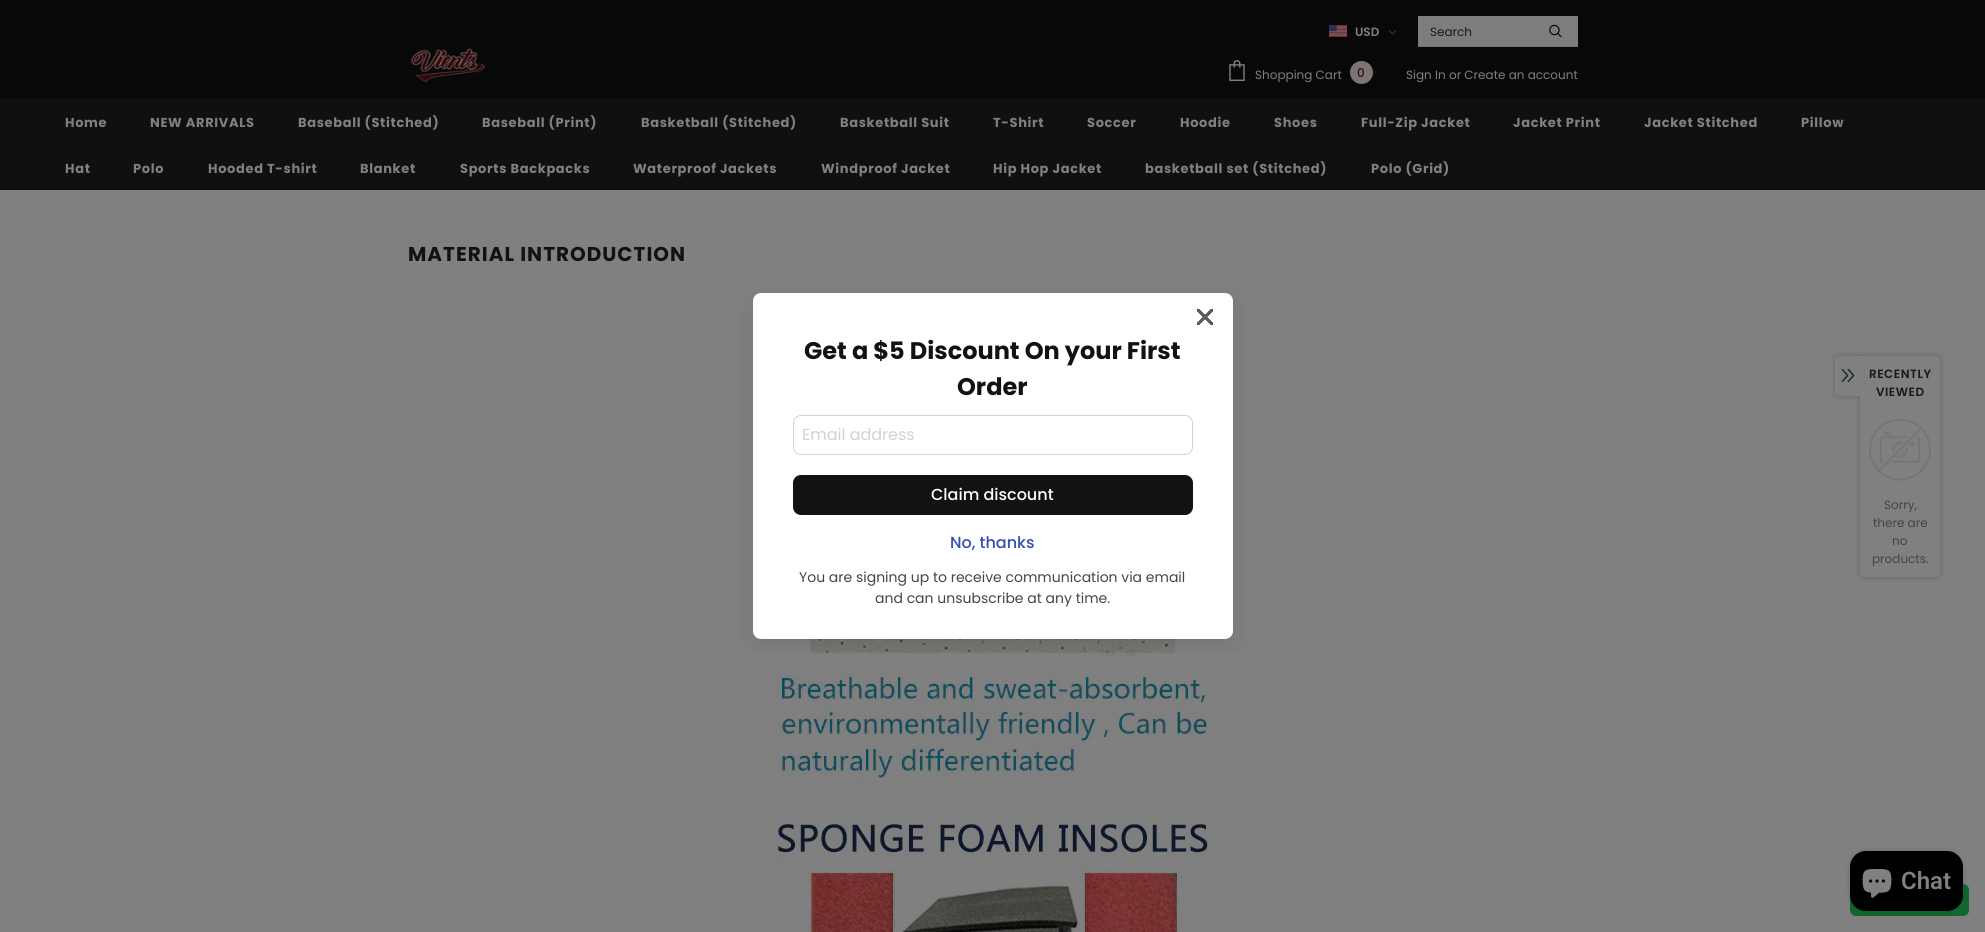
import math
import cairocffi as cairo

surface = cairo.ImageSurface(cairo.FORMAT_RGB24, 1985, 932)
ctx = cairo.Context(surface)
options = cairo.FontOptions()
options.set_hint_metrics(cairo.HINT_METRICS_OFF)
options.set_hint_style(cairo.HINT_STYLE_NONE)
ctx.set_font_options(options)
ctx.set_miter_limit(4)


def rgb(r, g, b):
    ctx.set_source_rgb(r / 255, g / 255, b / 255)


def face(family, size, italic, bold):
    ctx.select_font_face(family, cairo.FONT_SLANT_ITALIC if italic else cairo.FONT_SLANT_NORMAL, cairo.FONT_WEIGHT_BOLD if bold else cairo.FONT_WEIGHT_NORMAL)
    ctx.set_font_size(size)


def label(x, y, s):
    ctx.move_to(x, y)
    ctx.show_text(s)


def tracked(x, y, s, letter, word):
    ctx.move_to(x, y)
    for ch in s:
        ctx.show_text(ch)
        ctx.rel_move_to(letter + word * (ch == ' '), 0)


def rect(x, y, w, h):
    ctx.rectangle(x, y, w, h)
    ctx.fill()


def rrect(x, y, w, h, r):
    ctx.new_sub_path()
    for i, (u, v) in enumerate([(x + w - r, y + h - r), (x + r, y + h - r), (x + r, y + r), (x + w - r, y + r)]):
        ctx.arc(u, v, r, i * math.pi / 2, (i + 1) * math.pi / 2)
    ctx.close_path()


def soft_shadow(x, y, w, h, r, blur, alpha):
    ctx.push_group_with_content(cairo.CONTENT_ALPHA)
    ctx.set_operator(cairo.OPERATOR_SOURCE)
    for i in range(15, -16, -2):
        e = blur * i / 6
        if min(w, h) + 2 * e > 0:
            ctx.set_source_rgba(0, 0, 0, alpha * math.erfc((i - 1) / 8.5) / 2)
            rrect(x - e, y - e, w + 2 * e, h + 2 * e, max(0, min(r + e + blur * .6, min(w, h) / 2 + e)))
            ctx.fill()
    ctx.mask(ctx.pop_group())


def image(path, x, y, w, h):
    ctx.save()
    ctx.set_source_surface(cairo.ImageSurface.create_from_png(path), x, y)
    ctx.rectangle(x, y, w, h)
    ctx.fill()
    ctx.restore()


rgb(128, 128, 128)
ctx.paint()
rgb(8, 8, 8)
rect(0, 0, 1985, 99)
image('image0.png', 1329, 25, 18, 12)
face('Poppins SemiBold', 12, 0, 0)
rgb(128, 128, 128)
label(1355, 36, 'USD')
image('image1.png', 1388, 30, 9, 5)
rgb(125, 125, 125)
rect(1418, 16, 160, 30)
rgb(116, 116, 116)
rect(1418, 46, 160, 1)
face('Poppins', 12, 0, 0)
rgb(25, 25, 25)
label(1430, 36, 'Search')
image('image2.png', 1549, 24, 13, 14)
image('image3.png', 411, 48, 74, 35)
image('image4.png', 1229, 60, 16, 21)
rgb(128, 128, 128)
label(1255, 79, 'Shopping Cart')
rgb(128, 115, 115)
ctx.new_path()
ctx.arc(1361.5, 72.5, 11.5, 0, 2 * math.pi)
ctx.fill()
face('Poppins Medium', 12, 0, 0)
rgb(25, 25, 25)
label(1357, 77, '0')
face('Poppins', 12, 0, 0)
rgb(128, 128, 128)
label(1406, 79, 'Sign In')
label(1449, 79, 'or Create an account')
rgb(16, 16, 16)
rect(0, 99, 1985, 91)
face('Poppins', 13, 0, 1)
rgb(128, 128, 128)
tracked(65, 127, 'Home', 0.65, 0)
tracked(150, 127, 'NEW ARRIVALS', 0.65, 0)
tracked(298, 127, 'Baseball (Stitched)', 0.65, 0)
tracked(482, 127, 'Baseball (Print)', 0.65, 0)
tracked(641, 127, 'Basketball (Stitched)', 0.65, 0)
tracked(840, 127, 'Basketball Suit', 0.65, 0)
tracked(993, 127, 'T-Shirt', 0.65, 0)
tracked(1087, 127, 'Soccer', 0.65, 0)
tracked(1180, 127, 'Hoodie', 0.65, 0)
tracked(1274, 127, 'Shoes', 0.65, 0)
tracked(1361, 127, 'Full-Zip Jacket', 0.65, 0)
tracked(1513, 127, 'Jacket Print', 0.65, 0)
tracked(1644, 127, 'Jacket Stitched', 0.65, 0)
tracked(1801, 127, 'Pillow', 0.65, 0)
tracked(65, 173, 'Hat', 0.65, 0)
tracked(133, 173, 'Polo', 0.65, 0)
tracked(208, 173, 'Hooded T-shirt', 0.65, 0)
tracked(360, 173, 'Blanket', 0.65, 0)
tracked(460, 173, 'Sports Backpacks', 0.65, 0)
tracked(633, 173, 'Waterproof Jackets', 0.65, 0)
tracked(821, 173, 'Windproof Jacket', 0.65, 0)
tracked(993, 173, 'Hip Hop Jacket', 0.65, 0)
tracked(1145, 173, 'basketball set (Stitched)', 0.65, 0)
tracked(1371, 173, 'Polo (Grid)', 0.65, 0)
face('Poppins', 20, 0, 1)
rgb(18, 18, 18)
tracked(408, 261, 'MATERIAL INTRODUCTION', 1, 0)
image('image5.png', 776, 639, 433, 293)
ctx.save()
ctx.rectangle(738, 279, 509, 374)
ctx.clip()
rgb(18, 17, 39)
soft_shadow(753, 301, 480, 346, 8, 10, 0.1)
ctx.restore()
rgb(255, 255, 255)
rrect(753, 293, 480, 346, 8)
ctx.fill()
image('image6.png', 1197, 309, 16, 16)
face('Poppins', 24, 0, 1)
rgb(18, 18, 18)
label(804, 359, 'Get a $5 Discount On your First')
label(957, 395, 'Order')
rrect(793.5, 415.5, 399, 39, 7.5)
rgb(209, 209, 219)
ctx.set_line_width(1)
ctx.stroke()
face('Poppins', 16, 0, 0)
label(802, 440, 'Email address')
rgb(18, 18, 18)
rrect(793, 475, 400, 40, 8)
ctx.fill()
face('Poppins Medium', 16, 0, 0)
rgb(255, 255, 255)
label(931, 500, 'Claim discount')
rgb(51, 79, 180)
label(950, 548, 'No, thanks')
face('Poppins', 14, 0, 0)
rgb(69, 69, 69)
label(799, 582, 'You are signing up to receive communication via email')
label(875, 603, 'and can unsubscribe at any time.')
rgb(0, 0, 0)
soft_shadow(1858, 354, 84, 225, 5, 1.5, 0.1)
rgb(128, 128, 128)
ctx.new_path()
ctx.move_to(1860, 356)
ctx.line_to(1937, 356)
ctx.curve_to(1938.5, 356, 1940, 357.5, 1940, 359)
ctx.line_to(1940, 574)
ctx.curve_to(1940, 575.5, 1938.5, 577, 1937, 577)
ctx.line_to(1863, 577)
ctx.curve_to(1861.5, 577, 1860, 575.5, 1860, 574)
ctx.close_path()
ctx.fill()
rgb(0, 0, 0)
soft_shadow(1833, 354, 30, 44, 5, 1.5, 0.1)
rgb(128, 128, 128)
ctx.new_path()
ctx.move_to(1838, 356)
ctx.line_to(1861, 356)
ctx.line_to(1861, 396)
ctx.line_to(1838, 396)
ctx.curve_to(1836.5, 396, 1835, 394.5, 1835, 393)
ctx.line_to(1835, 359)
ctx.curve_to(1835, 357.5, 1836.5, 356, 1838, 356)
ctx.close_path()
ctx.fill()
image('image7.png', 1841, 369, 14, 14)
rect(1860, 356, 4, 43)
face('Poppins SemiBold', 12, 0, 0)
rgb(25, 25, 25)
tracked(1869, 378, 'RECENTLY', 0.5, 0)
tracked(1876, 396, 'VIEWED', 0.5, 0)
image('image8.png', 1869, 419, 62, 62)
face('Poppins', 12, 0, 0)
rgb(63, 70, 71)
label(1884, 509, 'Sorry,')
label(1873, 527, 'there are')
label(1892, 545, 'no')
label(1872, 563, 'products.')
rgb(17, 103, 46)
rrect(1850, 884, 119, 32, 6)
ctx.fill()
rgb(0, 0, 0)
soft_shadow(1850, 851, 113, 60, 16, 2.5, 0.15)
rgb(0, 0, 0)
rrect(1850, 851, 113, 60, 16)
ctx.fill()
image('image9.png', 1862, 869, 30, 29)
face('Roboto SemiBold', 24, 0, 0)
rgb(128, 128, 128)
label(1901, 889, 'Chat')
surface.write_to_png('render.png')
